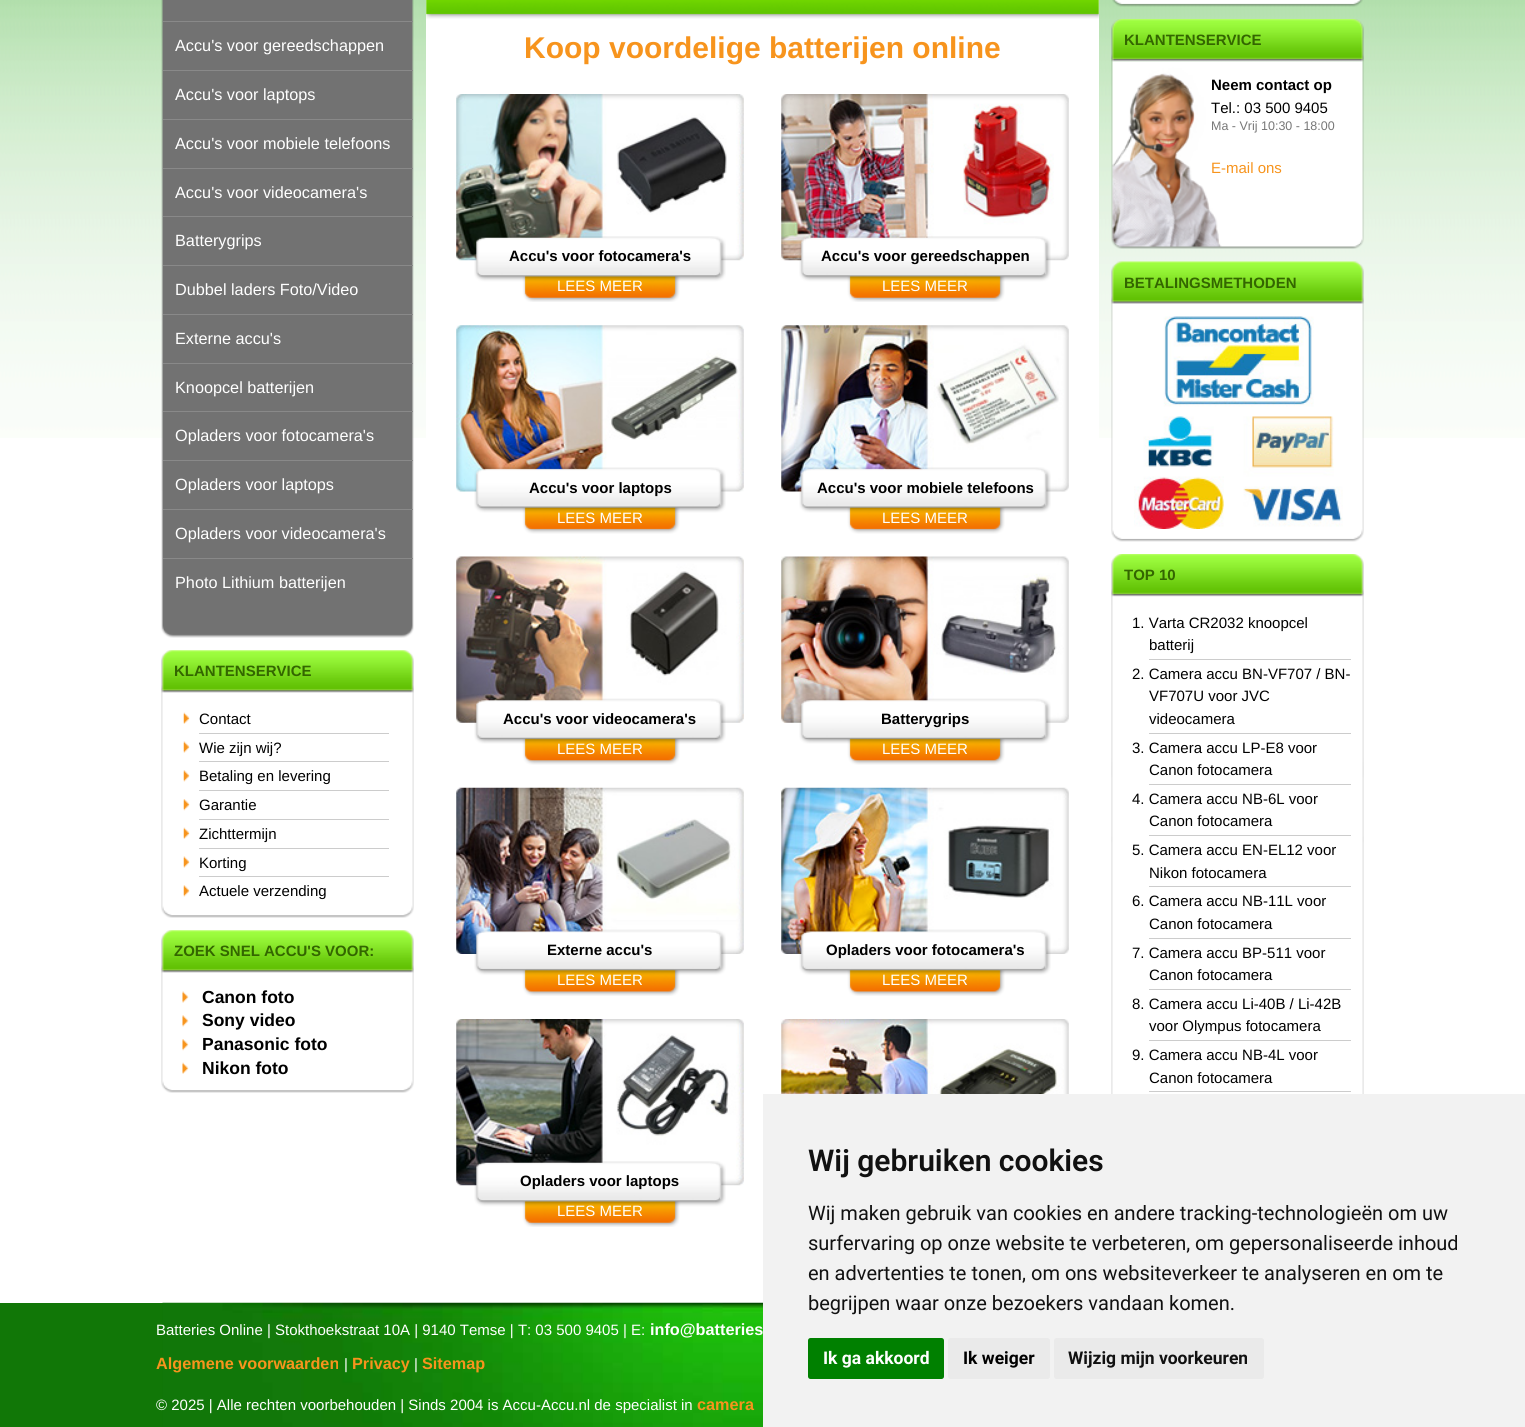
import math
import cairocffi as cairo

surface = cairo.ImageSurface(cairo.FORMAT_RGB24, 1525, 1427)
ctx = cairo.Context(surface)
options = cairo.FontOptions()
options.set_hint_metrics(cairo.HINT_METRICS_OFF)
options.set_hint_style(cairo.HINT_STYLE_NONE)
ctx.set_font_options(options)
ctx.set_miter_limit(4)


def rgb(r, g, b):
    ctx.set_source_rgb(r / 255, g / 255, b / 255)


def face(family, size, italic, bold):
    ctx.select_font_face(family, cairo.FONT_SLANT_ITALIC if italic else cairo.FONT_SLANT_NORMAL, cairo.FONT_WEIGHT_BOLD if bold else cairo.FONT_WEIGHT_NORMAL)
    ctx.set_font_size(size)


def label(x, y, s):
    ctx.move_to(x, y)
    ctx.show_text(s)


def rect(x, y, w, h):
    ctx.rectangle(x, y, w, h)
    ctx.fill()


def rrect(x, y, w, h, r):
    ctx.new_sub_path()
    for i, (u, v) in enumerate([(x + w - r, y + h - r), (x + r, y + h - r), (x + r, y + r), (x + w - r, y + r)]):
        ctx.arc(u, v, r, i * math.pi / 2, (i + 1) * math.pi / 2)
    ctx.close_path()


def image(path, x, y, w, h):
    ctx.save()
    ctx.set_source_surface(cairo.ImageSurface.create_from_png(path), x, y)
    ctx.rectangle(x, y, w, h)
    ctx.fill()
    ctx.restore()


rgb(255, 255, 255)
ctx.paint()
image('image0.png', 0, 0, 1525, 438)
image('image1.png', 161, 0, 253, 638)
rgb(137, 137, 137)
rect(163, 21, 250, 1)
rect(163, 70, 250, 1)
face('Liberation Sans', 16.25, 0, 0)
rgb(255, 255, 255)
label(175, 51, 'Accu\'s voor gereedschappen')
rgb(137, 137, 137)
rect(163, 119, 250, 1)
rgb(255, 255, 255)
label(175, 100, 'Accu\'s voor laptops')
rgb(137, 137, 137)
rect(163, 168, 250, 1)
rgb(255, 255, 255)
label(175, 149, 'Accu\'s voor mobiele telefoons')
rgb(137, 137, 137)
rect(163, 216, 250, 1)
rgb(255, 255, 255)
label(175, 198, 'Accu\'s voor videocamera\'s')
rgb(137, 137, 137)
rect(163, 265, 250, 1)
rgb(255, 255, 255)
label(175, 246, 'Batterygrips')
rgb(137, 137, 137)
rect(163, 314, 250, 1)
rgb(255, 255, 255)
label(175, 295, 'Dubbel laders Foto/Video')
rgb(137, 137, 137)
rect(163, 363, 250, 1)
rgb(255, 255, 255)
label(175, 344, 'Externe accu\'s')
rgb(137, 137, 137)
rect(163, 411, 250, 1)
rgb(255, 255, 255)
label(175, 393, 'Knoopcel batterijen')
rgb(137, 137, 137)
rect(163, 460, 250, 1)
rgb(255, 255, 255)
label(175, 441, 'Opladers voor fotocamera\'s')
rgb(137, 137, 137)
rect(163, 509, 250, 1)
rgb(255, 255, 255)
label(175, 490, 'Opladers voor laptops')
rgb(137, 137, 137)
rect(163, 558, 250, 1)
rgb(255, 255, 255)
label(175, 539, 'Opladers voor videocamera\'s')
label(175, 588, 'Photo Lithium batterijen')
image('image2.png', 161, 650, 253, 43)
face('Liberation Sans', 15, 0, 1)
rgb(51, 102, 0)
label(174, 676, 'KLANTENSERVICE')
image('image3.png', 161, 692, 253, 226)
image('image4.png', 183, 712, 7, 12)
face('Liberation Sans', 15, 0, 0)
rgb(0, 0, 0)
label(199, 724, 'Contact')
rgb(204, 204, 204)
rect(199, 733, 190, 1)
image('image5.png', 183, 741, 7, 12)
rgb(0, 0, 0)
label(199, 753, 'Wie zijn wij?')
rgb(204, 204, 204)
rect(199, 761, 190, 1)
image('image6.png', 183, 770, 7, 12)
rgb(0, 0, 0)
label(199, 781, 'Betaling en levering')
rgb(204, 204, 204)
rect(199, 790, 190, 1)
image('image7.png', 183, 799, 7, 12)
rgb(0, 0, 0)
label(199, 810, 'Garantie')
rgb(204, 204, 204)
rect(199, 819, 190, 1)
image('image4.png', 183, 827, 7, 12)
rgb(0, 0, 0)
label(199, 839, 'Zichttermijn')
rgb(204, 204, 204)
rect(199, 848, 190, 1)
image('image5.png', 183, 856, 7, 12)
rgb(0, 0, 0)
label(199, 868, 'Korting')
rgb(204, 204, 204)
rect(199, 876, 190, 1)
image('image6.png', 183, 885, 7, 12)
rgb(0, 0, 0)
label(199, 896, 'Actuele verzending')
image('image2.png', 161, 930, 253, 43)
face('Liberation Sans', 15, 0, 1)
rgb(51, 102, 0)
label(174, 956, 'ZOEK SNEL ACCU\'S VOOR:')
image('image8.png', 161, 972, 253, 121)
image('image9.png', 182, 991, 7, 12)
face('Liberation Sans', 17.5, 0, 1)
rgb(0, 0, 0)
label(202, 1003, 'Canon foto')
image('image10.png', 182, 1015, 7, 12)
label(202, 1026, 'Sony video')
image('image11.png', 182, 1039, 7, 12)
label(202, 1050, 'Panasonic foto')
image('image12.png', 182, 1062, 7, 12)
label(202, 1074, 'Nikon foto')
rgb(255, 255, 255)
rect(426, 0, 673, 438)
image('image13.png', 426, 0, 673, 19)
face('Liberation Sans', 30, 0, 1)
rgb(247, 148, 29)
label(524, 58, 'Koop voordelige batterijen online')
image('image14.png', 456, 94, 288, 167)
image('image15.png', 474, 236, 252, 66)
face('Liberation Sans', 15, 0, 1)
rgb(0, 0, 0)
label(509, 261, 'Accu\'s voor fotocamera\'s')
face('Liberation Sans', 15, 0, 0)
rgb(255, 255, 255)
label(557, 291, 'LEES MEER')
image('image16.png', 781, 94, 288, 167)
image('image17.png', 799, 236, 252, 66)
face('Liberation Sans', 15, 0, 1)
rgb(0, 0, 0)
label(821, 261, 'Accu\'s voor gereedschappen')
face('Liberation Sans', 15, 0, 0)
rgb(255, 255, 255)
label(882, 291, 'LEES MEER')
image('image18.png', 456, 325, 288, 167)
image('image19.png', 474, 467, 252, 67)
face('Liberation Sans', 15, 0, 1)
rgb(0, 0, 0)
label(529, 493, 'Accu\'s voor laptops')
face('Liberation Sans', 15, 0, 0)
rgb(255, 255, 255)
label(557, 523, 'LEES MEER')
image('image20.png', 781, 325, 288, 167)
image('image21.png', 799, 467, 252, 67)
face('Liberation Sans', 15, 0, 1)
rgb(0, 0, 0)
label(817, 493, 'Accu\'s voor mobiele telefoons')
face('Liberation Sans', 15, 0, 0)
rgb(255, 255, 255)
label(882, 523, 'LEES MEER')
image('image22.png', 456, 556, 288, 167)
image('image23.png', 474, 698, 252, 67)
face('Liberation Sans', 15, 0, 1)
rgb(0, 0, 0)
label(503, 724, 'Accu\'s voor videocamera\'s')
face('Liberation Sans', 15, 0, 0)
rgb(255, 255, 255)
label(557, 754, 'LEES MEER')
image('image24.png', 781, 556, 288, 167)
image('image25.png', 799, 698, 252, 67)
face('Liberation Sans', 15, 0, 1)
rgb(0, 0, 0)
label(881, 724, 'Batterygrips')
face('Liberation Sans', 15, 0, 0)
rgb(255, 255, 255)
label(882, 754, 'LEES MEER')
image('image26.png', 456, 787, 288, 167)
image('image27.png', 474, 929, 252, 67)
face('Liberation Sans', 15, 0, 1)
rgb(0, 0, 0)
label(547, 955, 'Externe accu\'s')
face('Liberation Sans', 15, 0, 0)
rgb(255, 255, 255)
label(557, 985, 'LEES MEER')
image('image28.png', 781, 787, 288, 167)
image('image29.png', 799, 929, 252, 67)
face('Liberation Sans', 15, 0, 1)
rgb(0, 0, 0)
label(826, 955, 'Opladers voor fotocamera\'s')
face('Liberation Sans', 15, 0, 0)
rgb(255, 255, 255)
label(882, 985, 'LEES MEER')
image('image30.png', 781, 1019, 288, 75)
image('image31.png', 456, 1019, 288, 167)
image('image32.png', 474, 1161, 252, 66)
face('Liberation Sans', 15, 0, 1)
rgb(0, 0, 0)
label(520, 1186, 'Opladers voor laptops')
face('Liberation Sans', 15, 0, 0)
rgb(255, 255, 255)
label(557, 1216, 'LEES MEER')
image('image33.png', 1112, 0, 251, 7)
image('image34.png', 1111, 19, 253, 43)
face('Liberation Sans', 15, 0, 1)
rgb(51, 102, 0)
label(1124, 45, 'KLANTENSERVICE')
image('image35.png', 1111, 61, 253, 188)
rgb(0, 0, 0)
label(1211, 90, 'Neem contact op')
face('Liberation Sans', 15, 0, 0)
label(1211, 113, 'Tel.: 03 500 9405')
face('Liberation Sans', 12.5, 0, 0)
rgb(119, 119, 119)
label(1211, 130, 'Ma - Vrij 10:30 - 18:00')
face('Liberation Sans', 15, 0, 0)
rgb(247, 148, 29)
label(1211, 173, 'E-mail ons')
image('image36.png', 1111, 261, 253, 43)
face('Liberation Sans', 15, 0, 1)
rgb(51, 102, 0)
label(1124, 288, 'BETALINGSMETHODEN')
image('image37.png', 1111, 304, 253, 238)
image('image38.png', 1134, 316, 209, 213)
image('image39.png', 1111, 554, 253, 43)
label(1124, 580, 'TOP 10')
image('image40.png', 1111, 596, 253, 498)
face('Liberation Sans', 15, 0, 0)
rgb(0, 0, 0)
label(1132, 628, '1. Varta CR2032 knoopcel')
label(1149, 650, 'batterij')
rgb(204, 204, 204)
rect(1149, 659, 202, 1)
rgb(0, 0, 0)
label(1132, 679, '2. Camera accu BN-VF707 / BN-')
label(1149, 701, 'VF707U voor JVC')
label(1149, 724, 'videocamera')
rgb(204, 204, 204)
rect(1149, 733, 202, 1)
rgb(0, 0, 0)
label(1132, 753, '3. Camera accu LP-E8 voor')
label(1149, 775, 'Canon fotocamera')
rgb(204, 204, 204)
rect(1149, 784, 202, 1)
rgb(0, 0, 0)
label(1132, 804, '4. Camera accu NB-6L voor')
label(1149, 826, 'Canon fotocamera')
rgb(204, 204, 204)
rect(1149, 835, 202, 1)
rgb(0, 0, 0)
label(1132, 855, '5. Camera accu EN-EL12 voor')
label(1149, 878, 'Nikon fotocamera')
rgb(204, 204, 204)
rect(1149, 886, 202, 1)
rgb(0, 0, 0)
label(1132, 906, '6. Camera accu NB-11L voor')
label(1149, 929, 'Canon fotocamera')
rgb(204, 204, 204)
rect(1149, 938, 202, 1)
rgb(0, 0, 0)
label(1132, 958, '7. Camera accu BP-511 voor')
label(1149, 980, 'Canon fotocamera')
rgb(204, 204, 204)
rect(1149, 989, 202, 1)
rgb(0, 0, 0)
label(1132, 1009, '8. Camera accu Li-40B / Li-42B')
label(1149, 1031, 'voor Olympus fotocamera')
rgb(204, 204, 204)
rect(1149, 1040, 202, 1)
rgb(0, 0, 0)
label(1132, 1060, '9. Camera accu NB-4L voor')
label(1149, 1083, 'Canon fotocamera')
rgb(204, 204, 204)
rect(1149, 1091, 202, 1)
rgb(17, 119, 7)
rect(0, 1303, 163, 124)
image('image41.png', 162, 1302, 601, 125)
rgb(255, 255, 255)
label(156, 1335, 'Batteries Online | Stokthoekstraat 10A | 9140 Temse | T: 03 500 9405 | E:')
face('Liberation Sans', 16.25, 0, 1)
label(650, 1335, 'info@batteries')
rgb(247, 148, 29)
label(156, 1369, 'Algemene voorwaarden')
face('Liberation Sans', 15, 0, 0)
rgb(255, 255, 255)
label(344, 1369, '|')
face('Liberation Sans', 16.25, 0, 1)
rgb(247, 148, 29)
label(352, 1369, 'Privacy')
face('Liberation Sans', 15, 0, 0)
rgb(255, 255, 255)
label(414, 1369, '|')
face('Liberation Sans', 16.25, 0, 1)
rgb(247, 148, 29)
label(422, 1369, 'Sitemap')
face('Liberation Sans', 15, 0, 0)
rgb(255, 255, 255)
label(156, 1410, '© 2025 | Alle rechten voorbehouden | Sinds 2004 is Accu-Accu.nl de specialist in')
face('Liberation Sans', 16.25, 0, 1)
rgb(247, 148, 29)
label(697, 1410, 'camera')
rgb(242, 242, 242)
rect(763, 1094, 762, 333)
face('Roboto SemiBold', 30, 0, 0)
rgb(17, 17, 17)
label(808, 1171, 'Wij gebruiken cookies')
face('Roboto', 20, 0, 0)
label(808, 1220, 'Wij maken gebruik van cookies en andere tracking-technologieën om uw')
label(808, 1250, 'surfervaring op onze website te verbeteren, om gepersonaliseerde inhoud')
label(808, 1280, 'en advertenties te tonen, om ons websiteverkeer te analyseren en om te')
label(808, 1310, 'begrijpen waar onze bezoekers vandaan komen.')
rgb(0, 128, 0)
rrect(808, 1338, 136, 41, 2.5)
ctx.fill()
face('Roboto', 17.5, 0, 1)
rgb(255, 255, 255)
label(823, 1364, 'Ik ga akkoord')
rgb(234, 234, 234)
rrect(948, 1338, 102, 41, 2.5)
ctx.fill()
rgb(0, 0, 0)
label(963, 1364, 'Ik weiger')
rgb(234, 234, 234)
rrect(1054, 1338, 210, 41, 2.5)
ctx.fill()
rgb(17, 17, 17)
label(1068, 1364, 'Wijzig mijn voorkeuren')
surface.write_to_png('render.png')
